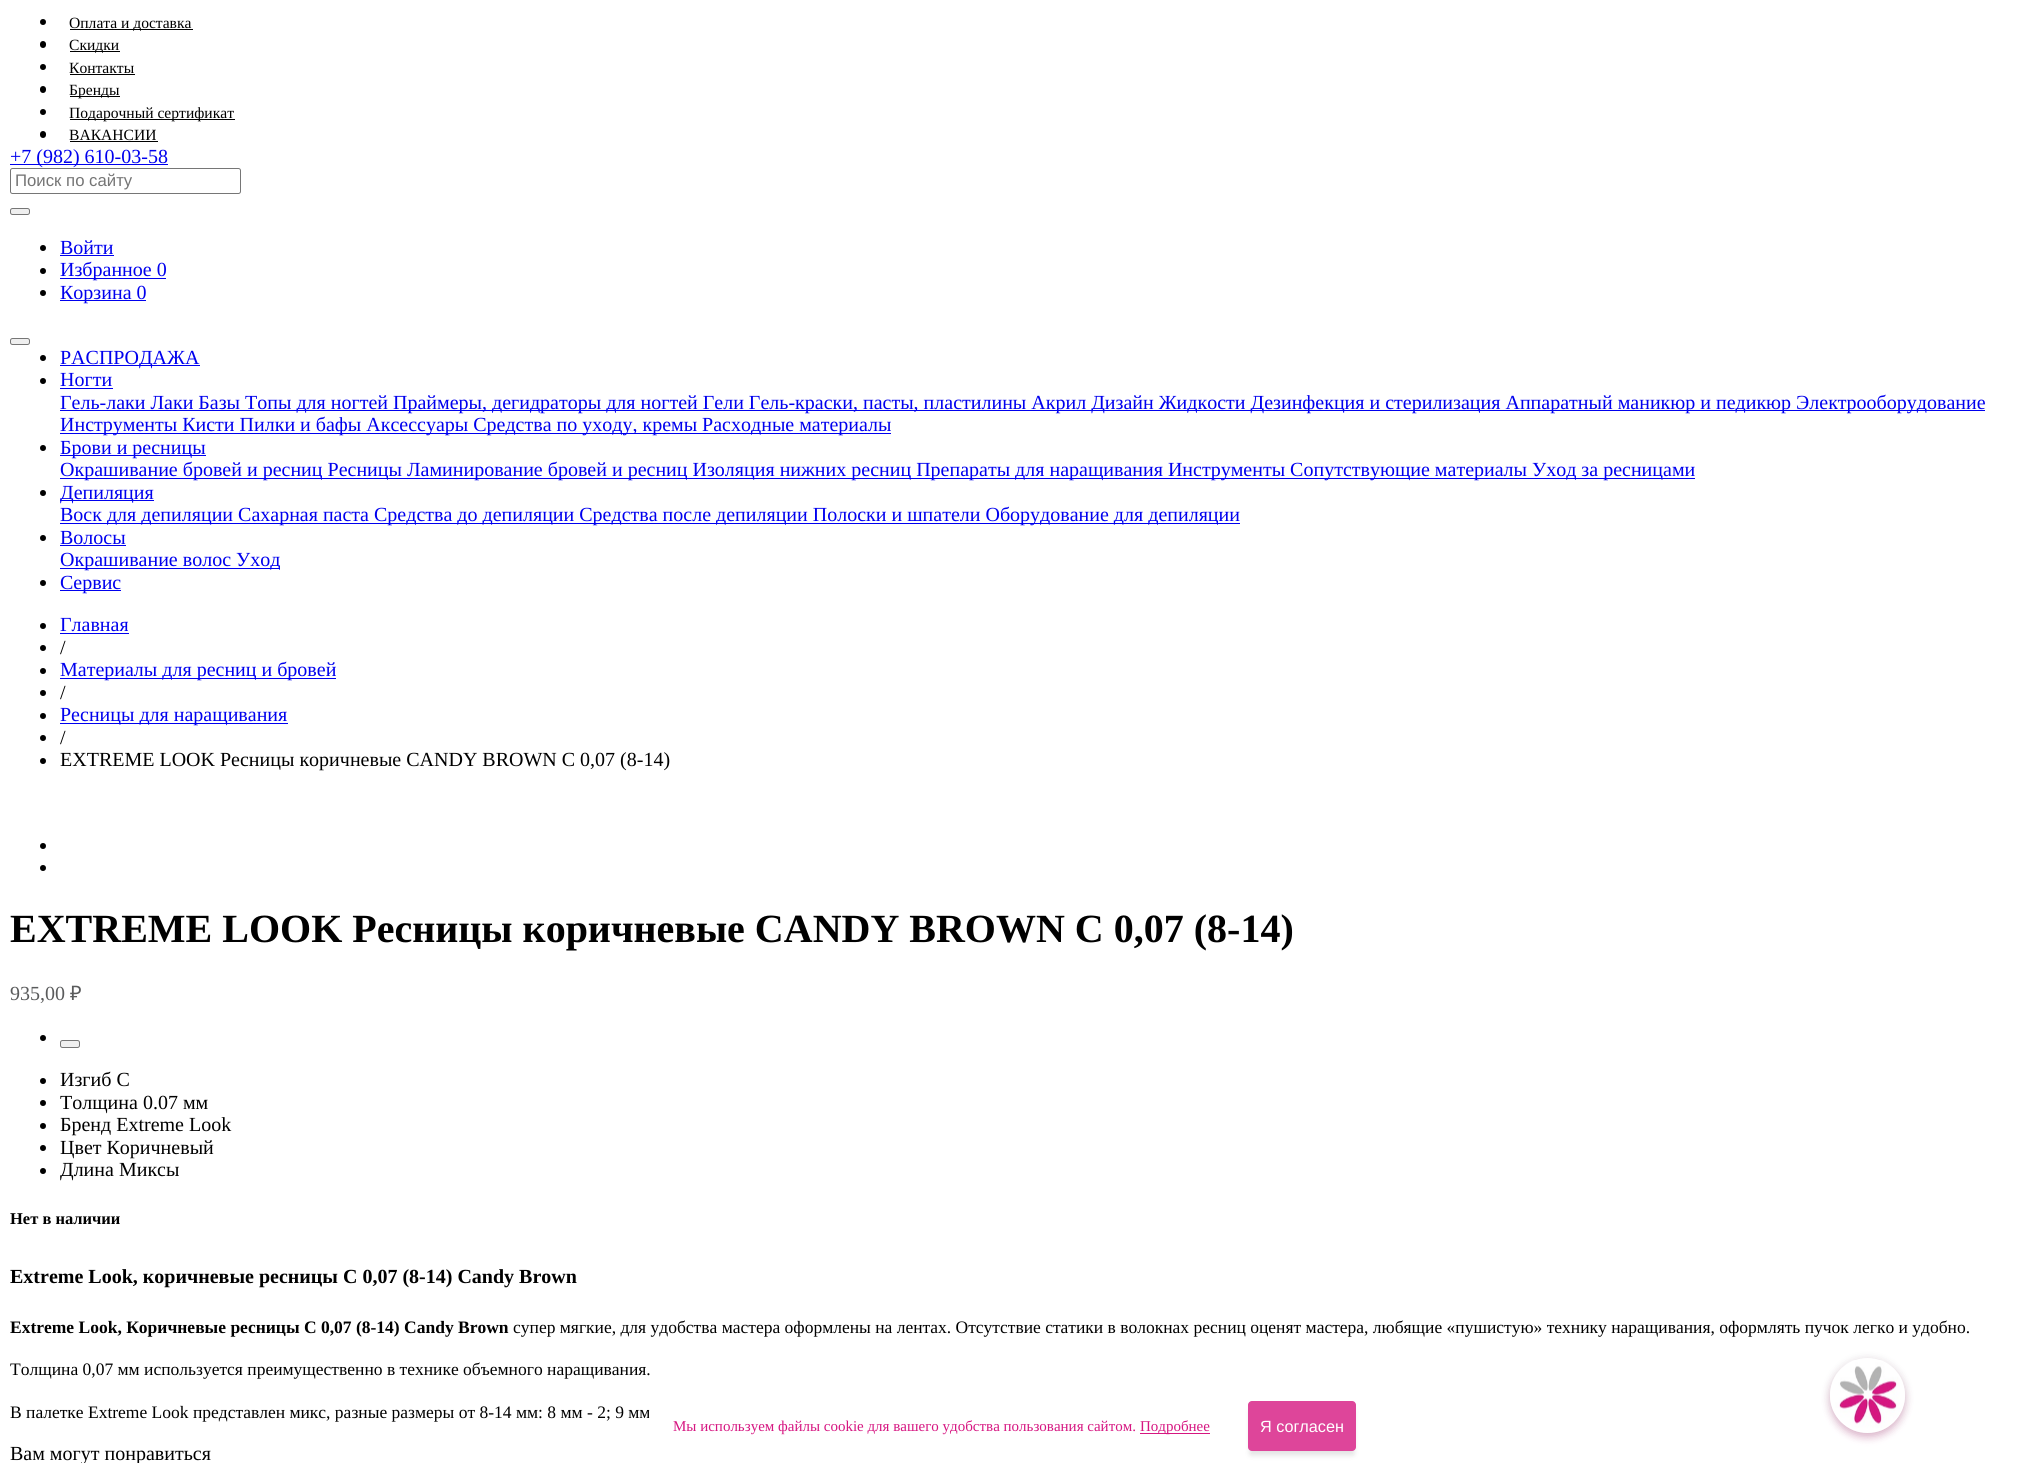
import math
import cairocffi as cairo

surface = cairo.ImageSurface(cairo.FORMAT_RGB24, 2030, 1463)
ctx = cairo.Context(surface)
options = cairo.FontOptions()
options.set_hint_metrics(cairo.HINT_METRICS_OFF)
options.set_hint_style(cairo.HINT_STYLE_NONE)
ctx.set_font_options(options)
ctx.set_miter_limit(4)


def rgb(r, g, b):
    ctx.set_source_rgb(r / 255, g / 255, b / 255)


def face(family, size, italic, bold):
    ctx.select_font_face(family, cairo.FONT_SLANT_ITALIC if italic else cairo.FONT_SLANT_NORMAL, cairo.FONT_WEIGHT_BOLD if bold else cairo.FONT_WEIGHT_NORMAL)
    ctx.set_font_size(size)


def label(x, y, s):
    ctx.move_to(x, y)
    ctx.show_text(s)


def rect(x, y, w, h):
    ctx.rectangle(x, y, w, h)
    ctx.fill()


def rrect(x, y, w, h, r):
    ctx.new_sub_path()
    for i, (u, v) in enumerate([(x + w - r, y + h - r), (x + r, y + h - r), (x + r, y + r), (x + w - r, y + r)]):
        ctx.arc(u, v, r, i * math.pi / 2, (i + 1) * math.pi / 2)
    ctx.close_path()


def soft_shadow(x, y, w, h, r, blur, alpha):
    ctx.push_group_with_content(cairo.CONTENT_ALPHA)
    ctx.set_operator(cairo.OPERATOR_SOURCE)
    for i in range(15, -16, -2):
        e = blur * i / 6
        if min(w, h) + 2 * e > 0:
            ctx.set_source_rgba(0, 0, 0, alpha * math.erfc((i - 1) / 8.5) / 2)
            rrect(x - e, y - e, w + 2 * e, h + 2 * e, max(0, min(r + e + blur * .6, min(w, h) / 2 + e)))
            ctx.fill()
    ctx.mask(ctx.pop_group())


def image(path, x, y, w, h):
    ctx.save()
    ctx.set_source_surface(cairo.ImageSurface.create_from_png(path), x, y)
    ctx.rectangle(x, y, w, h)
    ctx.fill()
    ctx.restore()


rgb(255, 255, 255)
ctx.paint()
rgb(0, 0, 0)
ctx.arc(43, 22, 3, 0, 2 * math.pi)
ctx.fill()
rect(70, 29, 123, 1)
face('Liberation Serif', 15.6, 0, 0)
label(69, 28, 'Оплата и доставка')
rrect(40, 41, 6, 7, 3)
ctx.fill()
rect(70, 51, 50, 1)
label(69, 50, 'Скидки')
ctx.new_path()
ctx.arc(43, 67, 3, 0, 2 * math.pi)
ctx.fill()
label(69, 73, 'Контакты')
rect(70, 74, 65, 1)
rrect(40, 86, 6, 7, 3)
ctx.fill()
rect(70, 96, 50, 1)
label(69, 95, 'Бренды')
ctx.new_path()
ctx.arc(43, 112, 3, 0, 2 * math.pi)
ctx.fill()
rect(70, 119, 165, 1)
label(69, 118, 'Подарочный сертификат')
rrect(40, 131, 6, 7, 3)
ctx.fill()
label(69, 140, 'ВАКАНСИИ')
rect(70, 141, 88, 1)
rgb(0, 0, 238)
rect(10, 164, 158, 1)
face('Liberation Serif', 20, 0, 0)
label(10, 163, '+7 (982) 610-03-58')
rrect(10.5, 168.5, 230, 25, 2)
rgb(118, 118, 118)
ctx.set_line_width(1)
ctx.stroke()
face('Liberation Sans', 16.75, 0, 0)
rgb(117, 117, 117)
label(15, 186, 'Поиск по сайту')
rgb(239, 239, 239)
rrect(10.5, 208.5, 19, 6, 2)
ctx.fill_preserve()
rgb(118, 118, 118)
ctx.stroke()
rgb(0, 0, 0)
ctx.arc(43, 248, 3, 0, 2 * math.pi)
ctx.fill()
face('Liberation Serif', 20, 0, 0)
rgb(0, 0, 238)
label(60, 254, 'Войти')
rect(60, 255, 54, 1)
rgb(0, 0, 0)
ctx.new_path()
ctx.arc(43, 271, 3, 0, 2 * math.pi)
ctx.fill()
rgb(0, 0, 238)
rect(60, 278, 106, 1)
label(60, 276, 'Избранное 0')
rgb(0, 0, 0)
ctx.new_path()
ctx.arc(43, 293, 3, 0, 2 * math.pi)
ctx.fill()
rgb(0, 0, 238)
rect(60, 300, 86, 1)
label(60, 299, 'Корзина 0')
rgb(239, 239, 239)
rrect(10.5, 338.5, 19, 6, 2)
ctx.fill_preserve()
rgb(118, 118, 118)
ctx.stroke()
rgb(0, 0, 0)
ctx.arc(43, 358, 3, 0, 2 * math.pi)
ctx.fill()
rgb(0, 0, 238)
rect(60, 365, 140, 1)
label(60, 364, 'РАСПРОДАЖА')
rgb(0, 0, 0)
ctx.new_path()
ctx.arc(43, 381, 3, 0, 2 * math.pi)
ctx.fill()
rgb(0, 0, 238)
label(60, 386, 'Ногти')
rect(60, 388, 53, 1)
rect(60, 410, 1925, 1)
label(60, 409, 'Гель-лаки Лаки Базы Топы для ногтей Праймеры, дегидраторы для ногтей Гели Гель-краски, пасты, пластилины Акрил Дизайн Жидкости Дезинфекция и стерилизация Аппаратный маникюр и педикюр Электрооборудование')
rect(60, 433, 831, 1)
label(60, 431, 'Инструменты Кисти Пилки и бафы Аксессуары Средства по уходу, кремы Расходные материалы')
rgb(0, 0, 0)
ctx.new_path()
ctx.arc(43, 448, 3, 0, 2 * math.pi)
ctx.fill()
rgb(0, 0, 238)
rect(60, 455, 146, 1)
label(60, 454, 'Брови и ресницы')
rect(60, 478, 1635, 1)
label(60, 476, 'Окрашивание бровей и ресниц Ресницы Ламинирование бровей и ресниц Изоляция нижних ресниц Препараты для наращивания Инструменты Сопутствующие материалы Уход за ресницами')
rgb(0, 0, 0)
ctx.new_path()
ctx.arc(43, 493, 3, 0, 2 * math.pi)
ctx.fill()
rgb(0, 0, 238)
rect(60, 500, 94, 1)
label(60, 499, 'Депиляция')
rect(60, 523, 1180, 1)
label(60, 521, 'Воск для депиляции Сахарная паста Средства до депиляции Средства после депиляции Полоски и шпатели Оборудование для депиляции')
rgb(0, 0, 0)
ctx.new_path()
ctx.arc(43, 538, 3, 0, 2 * math.pi)
ctx.fill()
rgb(0, 0, 238)
label(60, 544, 'Волосы')
rect(60, 545, 66, 1)
rect(60, 568, 220, 1)
label(60, 566, 'Окрашивание волос Уход')
rgb(0, 0, 0)
ctx.new_path()
ctx.arc(43, 583, 3, 0, 2 * math.pi)
ctx.fill()
rgb(0, 0, 238)
rect(60, 590, 61, 1)
label(60, 589, 'Сервис')
rgb(0, 0, 0)
ctx.new_path()
ctx.arc(43, 626, 3, 0, 2 * math.pi)
ctx.fill()
rgb(0, 0, 238)
label(60, 631, 'Главная')
rect(60, 633, 69, 1)
rgb(0, 0, 0)
ctx.new_path()
ctx.arc(43, 648, 3, 0, 2 * math.pi)
ctx.fill()
label(60, 654, '/')
ctx.new_path()
ctx.arc(43, 671, 3, 0, 2 * math.pi)
ctx.fill()
rgb(0, 0, 238)
rect(60, 678, 276, 1)
label(60, 676, 'Материалы для ресниц и бровей')
rgb(0, 0, 0)
ctx.new_path()
ctx.arc(43, 693, 3, 0, 2 * math.pi)
ctx.fill()
label(60, 699, '/')
ctx.new_path()
ctx.arc(43, 716, 3, 0, 2 * math.pi)
ctx.fill()
rgb(0, 0, 238)
rect(60, 723, 228, 1)
label(60, 721, 'Ресницы для наращивания')
rgb(0, 0, 0)
ctx.new_path()
ctx.arc(43, 738, 3, 0, 2 * math.pi)
ctx.fill()
label(60, 744, '/')
ctx.new_path()
ctx.arc(43, 761, 3, 0, 2 * math.pi)
ctx.fill()
label(60, 766, 'EXTREME LOOK Ресницы коричневые CANDY BROWN C 0,07 (8-14)')
ctx.new_path()
ctx.arc(43, 846, 3, 0, 2 * math.pi)
ctx.fill()
ctx.arc(43, 868, 3, 0, 2 * math.pi)
ctx.fill()
face('Liberation Serif', 40, 0, 1)
label(10, 942, 'EXTREME LOOK Ресницы коричневые CANDY BROWN C 0,07 (8-14)')
face('Liberation Serif', 20, 0, 0)
rgb(90, 91, 92)
label(10, 1000, '935,00')
face('Noto Sans', 20, 0, 0)
label(70, 1000, '₽')
rgb(0, 0, 0)
ctx.new_path()
ctx.arc(43, 1038, 3, 0, 2 * math.pi)
ctx.fill()
rgb(239, 239, 239)
rrect(60.5, 1040.5, 19, 7, 2)
ctx.fill_preserve()
rgb(118, 118, 118)
ctx.stroke()
rgb(0, 0, 0)
ctx.arc(43, 1081, 3, 0, 2 * math.pi)
ctx.fill()
face('Liberation Serif', 20, 0, 0)
label(60, 1086, 'Изгиб C')
ctx.new_path()
ctx.arc(43, 1103, 3, 0, 2 * math.pi)
ctx.fill()
label(60, 1109, 'Толщина 0.07 мм')
ctx.new_path()
ctx.arc(43, 1126, 3, 0, 2 * math.pi)
ctx.fill()
label(60, 1131, 'Бренд Extreme Look')
ctx.new_path()
ctx.arc(43, 1148, 3, 0, 2 * math.pi)
ctx.fill()
label(60, 1154, 'Цвет Коричневый')
ctx.new_path()
ctx.arc(43, 1171, 3, 0, 2 * math.pi)
ctx.fill()
label(60, 1176, 'Длина Миксы')
face('Liberation Serif', 16.5, 0, 1)
label(10, 1224, 'Нет в наличии')
face('Liberation Serif', 20, 0, 1)
label(10, 1283, 'Extreme Look, коричневые ресницы C 0,07 (8-14) Candy Brown')
face('Liberation Serif', 17.5, 0, 1)
label(10, 1333, 'Extreme Look, Коричневые ресницы C 0,07 (8-14) Candy Brown')
face('Liberation Serif', 17.5, 0, 0)
label(513, 1333, 'супер мягкие, для удобства мастера оформлены на лентах. Отсутствие статики в волокнах ресниц оценят мастера, любящие «пушистую» технику наращивания, оформлять пучок легко и удобно.')
label(10, 1375, 'Толщина 0,07 мм используется преимущественно в технике объемного наращивания.')
label(10, 1418, 'В палетке Extreme Look представлен микс, разные размеры от 8-14 мм: 8 мм - 2; 9 мм')
face('Liberation Serif', 20, 0, 0)
label(10, 1460, 'Вам могут понравиться')
ctx.set_source_rgba(1, 1, 1, 0.85)
rrect(649, 1395, 732, 63, 4)
ctx.fill()
face('Liberation Serif', 15, 0, 0)
rgb(214, 22, 129)
label(673, 1431, 'Мы используем файлы cookie для вашего удобства пользования сайтом.')
rect(1140, 1433, 70, 1)
label(1140, 1431, 'Подробнее')
rgb(0, 0, 0)
soft_shadow(1250, 1410, 104, 45, 1, 3, 0.12)
rgb(222, 69, 154)
rrect(1248, 1401, 108, 50, 4)
ctx.fill()
face('Liberation Sans', 16.25, 0, 0)
rgb(255, 255, 255)
label(1260, 1432, 'Я согласен')
rgb(214, 22, 129)
soft_shadow(1830, 1363, 75, 75, 37.5, 4, 0.2)
rgb(0, 0, 0)
soft_shadow(1830, 1360, 75, 75, 37.5, 5, 0.15)
rgb(255, 255, 255)
ctx.arc(1867.5, 1395.5, 37.5, 0, 2 * math.pi)
ctx.fill()
image('image0.png', 1830, 1360, 75, 73)
surface.write_to_png('render.png')
